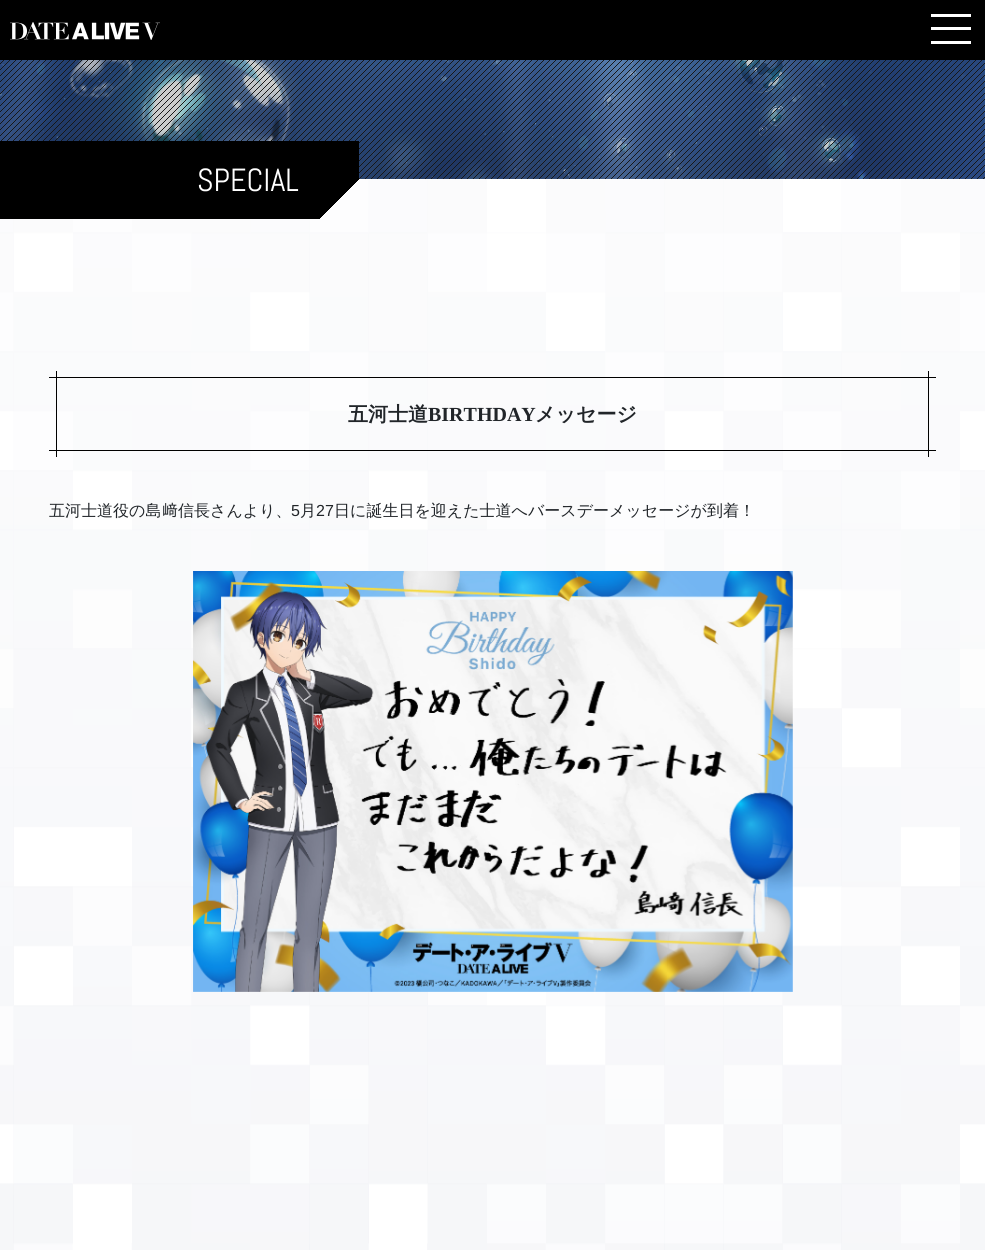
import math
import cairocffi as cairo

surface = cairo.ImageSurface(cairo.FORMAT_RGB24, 985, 1250)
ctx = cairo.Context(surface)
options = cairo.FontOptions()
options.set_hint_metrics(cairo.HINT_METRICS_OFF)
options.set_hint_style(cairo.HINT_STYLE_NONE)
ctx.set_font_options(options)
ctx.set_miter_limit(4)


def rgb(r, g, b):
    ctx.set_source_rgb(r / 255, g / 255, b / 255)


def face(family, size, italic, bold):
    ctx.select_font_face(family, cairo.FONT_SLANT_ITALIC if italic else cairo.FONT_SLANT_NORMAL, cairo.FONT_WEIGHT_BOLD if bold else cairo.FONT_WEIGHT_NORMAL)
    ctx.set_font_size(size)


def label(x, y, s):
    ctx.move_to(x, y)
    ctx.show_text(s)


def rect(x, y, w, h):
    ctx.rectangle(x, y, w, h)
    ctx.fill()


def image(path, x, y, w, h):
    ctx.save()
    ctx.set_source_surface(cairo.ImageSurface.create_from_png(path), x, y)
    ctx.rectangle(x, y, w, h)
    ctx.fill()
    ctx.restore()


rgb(255, 255, 255)
ctx.paint()
rgb(0, 0, 0)
rect(0, 0, 985, 60)
image('image0.png', 10, 22, 150, 18)
rgb(255, 255, 255)
rect(931, 14, 40, 3)
rect(931, 27, 40, 3)
rect(931, 41, 40, 3)
image('image1.png', 0, 178, 985, 1072)
image('image2.png', 0, 60, 985, 119)
image('image3.png', 0, 60, 985, 119)
gradient = cairo.LinearGradient(289, 289, 70, 71)
gradient.add_color_stop_rgba(0.09, 0, 0, 0, 0)
gradient.add_color_stop_rgba(0.09, 0, 0, 0, 1)
ctx.set_source(gradient)
rect(0, 141, 359, 78)
face('Abel', 32, 0, 0)
rgb(255, 255, 255)
label(197, 191, 'SPECIAL')
rgb(0, 0, 0)
rect(49, 377, 887, 1)
rect(49, 450, 887, 1)
rect(56, 371, 1, 86)
face('WenQuanYi Zen Hei', 20, 0, 1)
rgb(33, 37, 41)
label(348, 421, '五河士道')
face('Liberation Serif', 20, 0, 1)
label(428, 421, 'BIRTHDAY')
face('WenQuanYi Zen Hei', 20, 0, 1)
label(535, 421, 'メッセージ')
rgb(0, 0, 0)
rect(928, 371, 1, 86)
face('WenQuanYi Zen Hei Medium', 16, 0, 0)
rgb(33, 37, 41)
label(49, 516, '五河士道役の島')
face('IPAPGothic', 16, 0, 0)
label(162, 516, '﨑')
face('WenQuanYi Zen Hei Medium', 16, 0, 0)
label(178, 516, '信長さんより、')
face('Liberation Sans', 16, 0, 0)
label(291, 516, '5')
face('WenQuanYi Zen Hei Medium', 16, 0, 0)
label(300, 516, '月')
face('Liberation Sans', 16, 0, 0)
label(316, 516, '27')
face('WenQuanYi Zen Hei Medium', 16, 0, 0)
label(334, 516, '日に誕生日を迎えた士道へバースデーメッセージが到着！')
image('image4.png', 193, 571, 600, 421)
surface.write_to_png('render.png')
